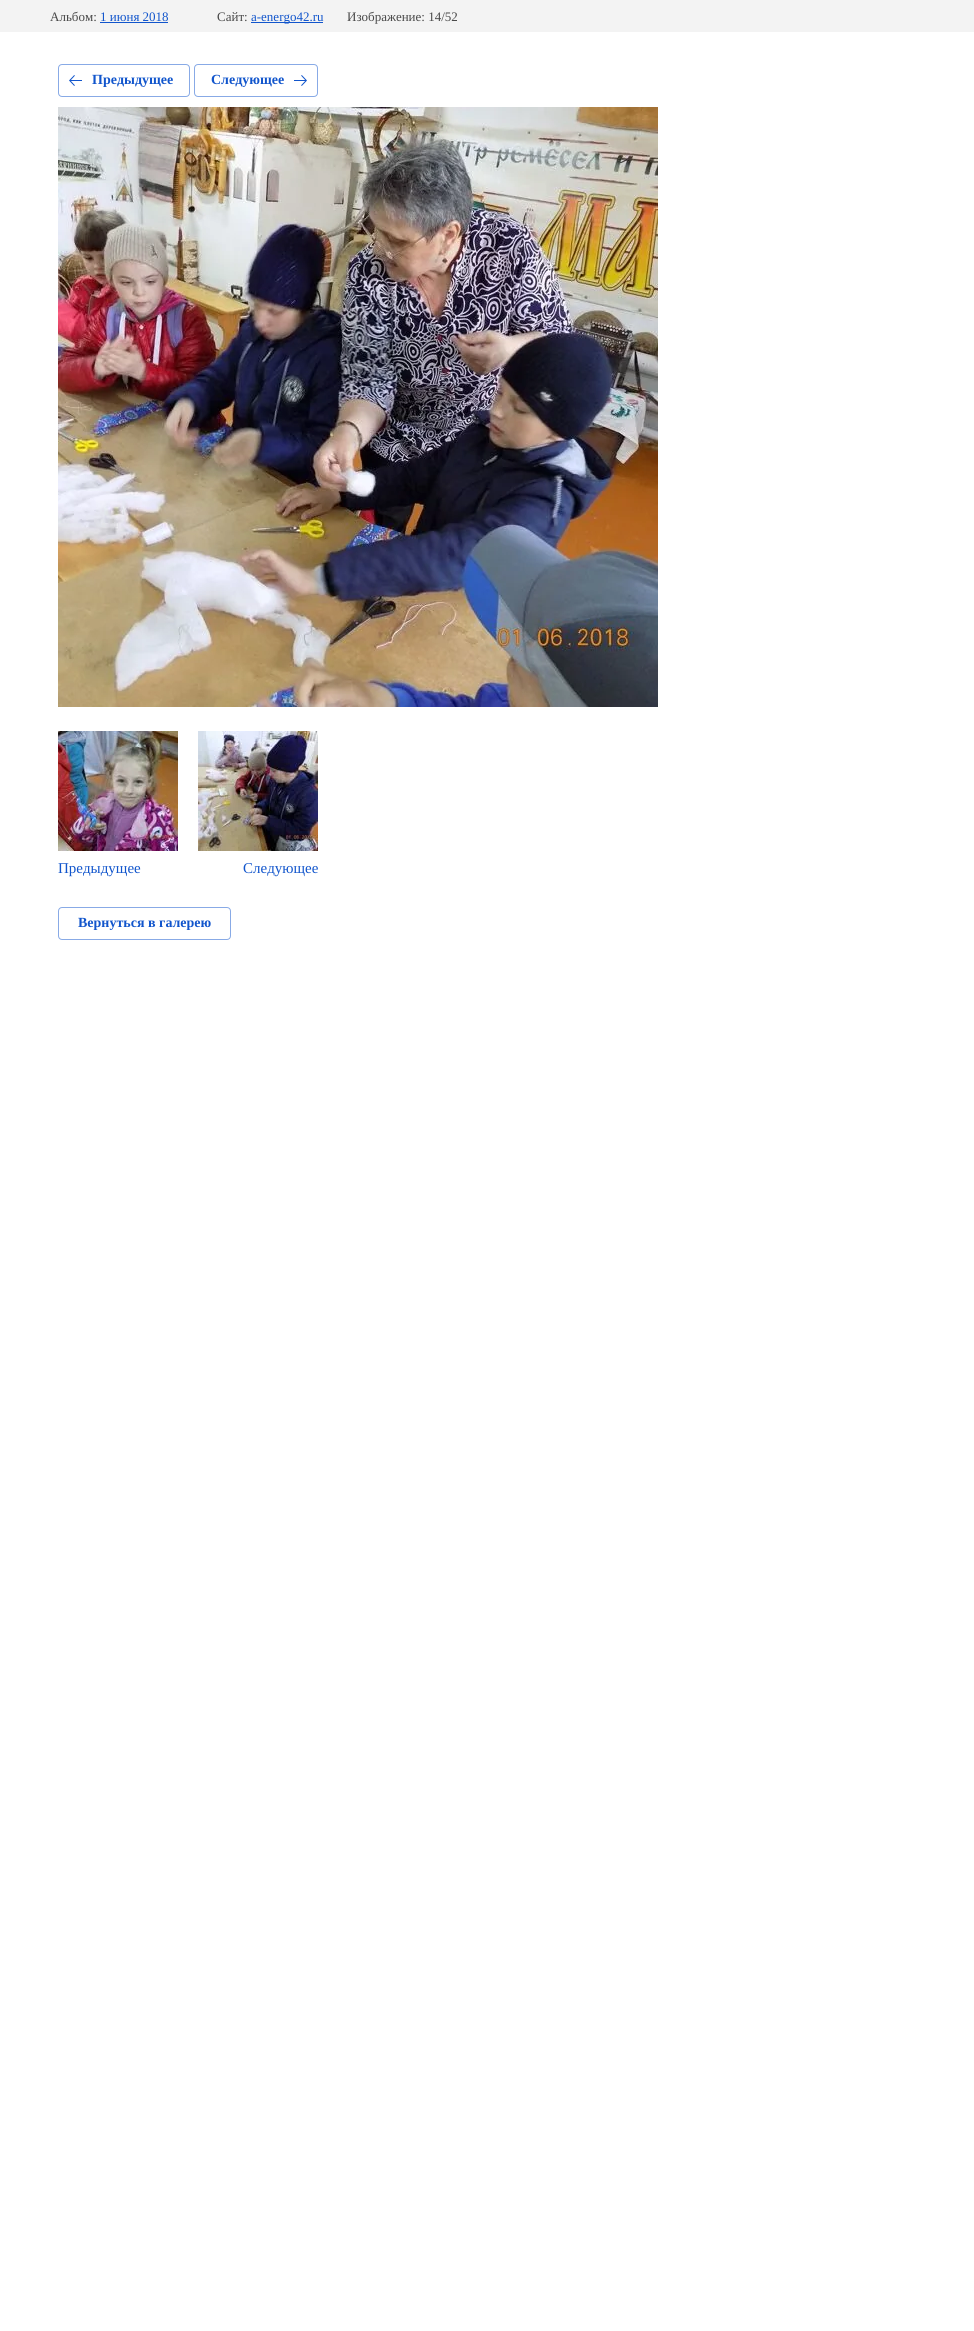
import math
import cairocffi as cairo

surface = cairo.ImageSurface(cairo.FORMAT_RGB24, 974, 2331)
ctx = cairo.Context(surface)
options = cairo.FontOptions()
options.set_hint_metrics(cairo.HINT_METRICS_OFF)
options.set_hint_style(cairo.HINT_STYLE_NONE)
ctx.set_font_options(options)
ctx.set_miter_limit(4)


def rgb(r, g, b):
    ctx.set_source_rgb(r / 255, g / 255, b / 255)


def face(family, size, italic, bold):
    ctx.select_font_face(family, cairo.FONT_SLANT_ITALIC if italic else cairo.FONT_SLANT_NORMAL, cairo.FONT_WEIGHT_BOLD if bold else cairo.FONT_WEIGHT_NORMAL)
    ctx.set_font_size(size)


def label(x, y, s):
    ctx.move_to(x, y)
    ctx.show_text(s)


def rect(x, y, w, h):
    ctx.rectangle(x, y, w, h)
    ctx.fill()


def rrect(x, y, w, h, r):
    ctx.new_sub_path()
    for i, (u, v) in enumerate([(x + w - r, y + h - r), (x + r, y + h - r), (x + r, y + r), (x + w - r, y + r)]):
        ctx.arc(u, v, r, i * math.pi / 2, (i + 1) * math.pi / 2)
    ctx.close_path()


def image(path, x, y, w, h):
    ctx.save()
    ctx.set_source_surface(cairo.ImageSurface.create_from_png(path), x, y)
    ctx.rectangle(x, y, w, h)
    ctx.fill()
    ctx.restore()


rgb(255, 255, 255)
ctx.paint()
rgb(243, 243, 243)
rect(0, 0, 974, 32)
face('Liberation Serif', 13, 0, 0)
rgb(72, 72, 72)
label(50, 21, 'Альбом:')
rgb(17, 85, 204)
label(100, 21, '1 июня 2018')
rect(100, 22, 68, 1)
rgb(72, 72, 72)
label(217, 21, 'Сайт:')
rgb(17, 85, 204)
rect(251, 22, 72, 1)
label(251, 21, 'a-energo42.ru')
rgb(72, 72, 72)
label(347, 21, 'Изображение: 14/52')
rrect(58.5, 64.5, 131, 32, 3.5)
rgb(136, 170, 230)
ctx.set_line_width(1)
ctx.stroke()
image('image0.png', 69, 75, 13, 11)
face('Liberation Serif', 14, 0, 1)
rgb(17, 85, 204)
label(92, 84, 'Предыдущее')
rrect(194.5, 64.5, 123, 32, 3.5)
rgb(136, 170, 230)
ctx.stroke()
rgb(17, 85, 204)
label(211, 84, 'Следующее')
image('image1.png', 294, 75, 13, 11)
image('image2.png', 58, 107, 600, 600)
image('image3.png', 58, 731, 120, 120)
face('Liberation Serif', 15, 0, 0)
label(58, 873, 'Предыдущее')
image('image4.png', 198, 731, 120, 120)
label(243, 873, 'Следующее')
rrect(58.5, 907.5, 172, 32, 3.5)
rgb(136, 170, 230)
ctx.stroke()
face('Liberation Serif', 14, 0, 1)
rgb(17, 85, 204)
label(78, 927, 'Вернуться в галерею')
surface.write_to_png('render.png')
